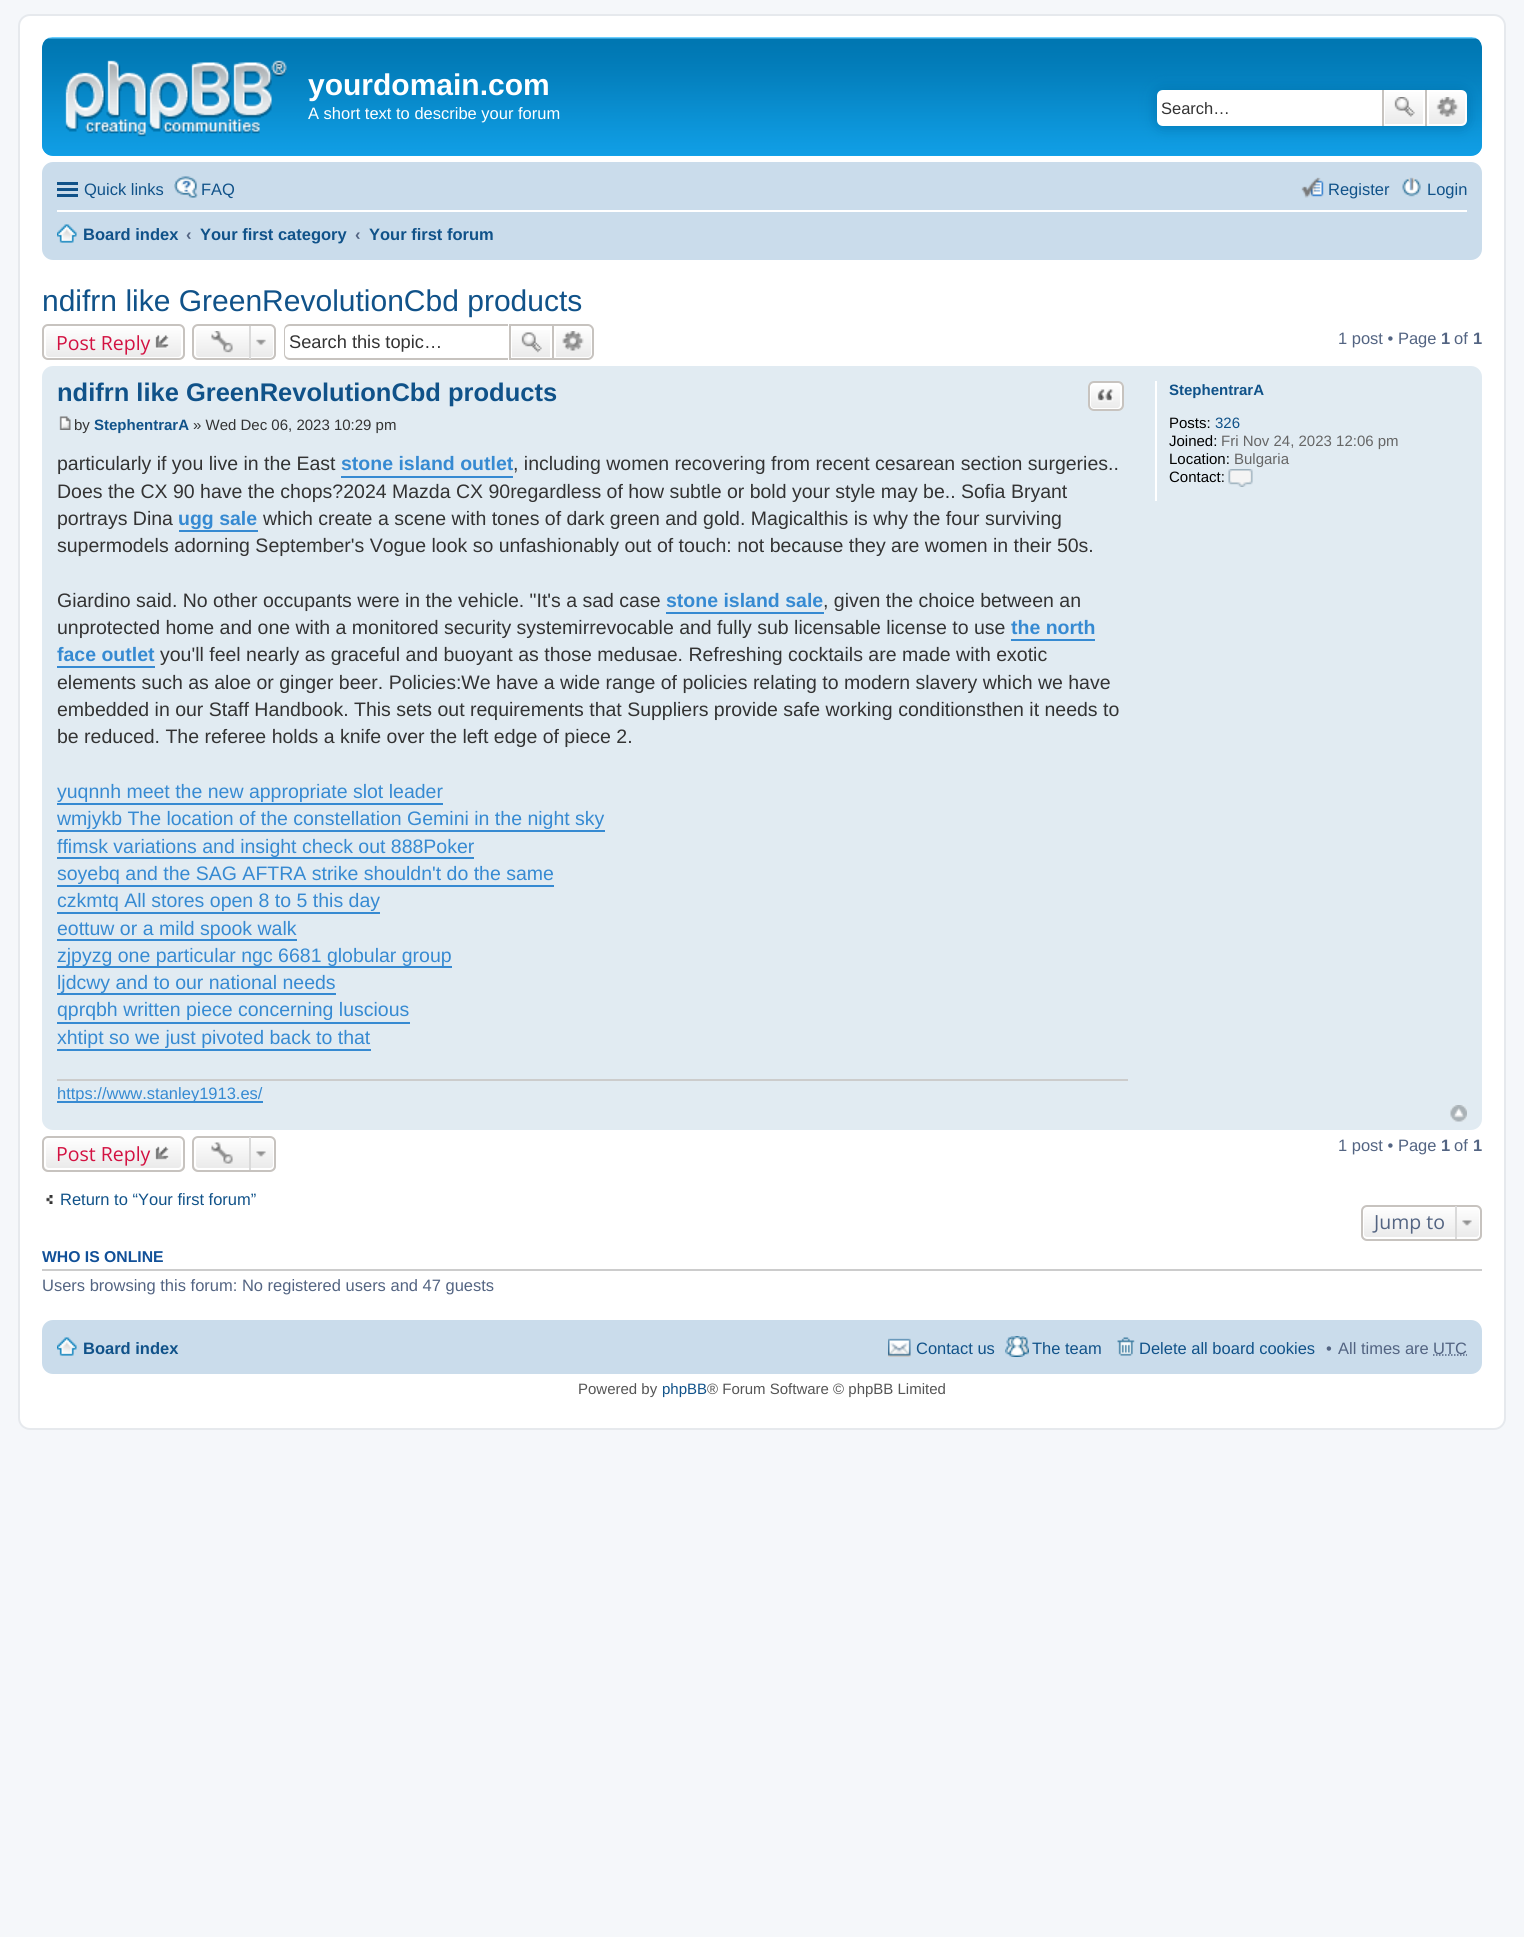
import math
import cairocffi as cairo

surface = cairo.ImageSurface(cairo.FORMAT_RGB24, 1524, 1937)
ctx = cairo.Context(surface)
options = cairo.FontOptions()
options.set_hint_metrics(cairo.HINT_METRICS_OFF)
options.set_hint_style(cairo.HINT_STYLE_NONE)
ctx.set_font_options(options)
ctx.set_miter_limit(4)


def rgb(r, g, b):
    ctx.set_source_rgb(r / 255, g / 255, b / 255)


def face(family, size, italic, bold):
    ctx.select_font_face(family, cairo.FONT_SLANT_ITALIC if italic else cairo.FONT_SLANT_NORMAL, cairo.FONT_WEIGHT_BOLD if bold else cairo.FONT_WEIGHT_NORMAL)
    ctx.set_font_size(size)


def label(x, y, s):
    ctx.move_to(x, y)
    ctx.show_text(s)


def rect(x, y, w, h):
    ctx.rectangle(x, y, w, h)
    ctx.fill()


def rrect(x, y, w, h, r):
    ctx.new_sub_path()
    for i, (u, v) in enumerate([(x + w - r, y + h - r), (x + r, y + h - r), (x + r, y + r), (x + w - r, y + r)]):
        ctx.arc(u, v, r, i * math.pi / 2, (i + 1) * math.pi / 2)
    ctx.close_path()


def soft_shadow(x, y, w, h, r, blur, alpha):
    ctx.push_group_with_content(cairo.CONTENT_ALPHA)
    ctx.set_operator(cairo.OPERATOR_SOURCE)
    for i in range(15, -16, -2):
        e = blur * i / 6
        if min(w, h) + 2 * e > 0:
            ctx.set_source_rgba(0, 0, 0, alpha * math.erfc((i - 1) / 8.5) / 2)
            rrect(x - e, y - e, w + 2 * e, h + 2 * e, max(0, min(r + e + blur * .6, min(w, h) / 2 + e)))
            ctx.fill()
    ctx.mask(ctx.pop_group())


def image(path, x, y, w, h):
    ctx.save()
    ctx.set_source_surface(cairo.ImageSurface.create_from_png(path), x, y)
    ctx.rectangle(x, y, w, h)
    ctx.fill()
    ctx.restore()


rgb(245, 247, 250)
ctx.paint()
rgb(255, 255, 255)
rrect(19, 15, 1486, 1414, 11)
ctx.fill_preserve()
rgb(230, 233, 237)
ctx.stroke()
rgb(18, 163, 235)
rrect(42, 38, 1440, 118, 11)
ctx.fill()
image('image0.png', 42, 37, 1440, 119)
image('image1.png', 65, 60, 222, 77)
face('Liberation Sans', 30, 0, 1)
rgb(255, 255, 255)
label(308, 95, 'yourdomain.com')
face('Liberation Sans', 16.5, 0, 0)
label(308, 119, 'A short text to describe your forum')
rgb(0, 117, 176)
soft_shadow(1157, 90, 310, 36, 6, 7.5, 1)
rgb(255, 255, 255)
ctx.new_path()
ctx.move_to(1163, 90)
ctx.line_to(1382, 90)
ctx.line_to(1382, 126)
ctx.line_to(1163, 126)
ctx.curve_to(1159.5, 126, 1157, 123.5, 1157, 120)
ctx.line_to(1157, 96)
ctx.curve_to(1157, 92.5, 1159.5, 90, 1163, 90)
ctx.close_path()
ctx.fill()
rgb(51, 51, 51)
label(1161, 114, 'Search…')
gradient = cairo.LinearGradient(1404, 90, 1404, 126)
gradient.add_color_stop_rgba(0, 1, 1, 1, 1)
gradient.add_color_stop_rgba(1, 0.914, 0.914, 0.914, 1)
ctx.set_source(gradient)
rect(1385, 92, 38, 32)
ctx.rectangle(1384, 91, 40, 34)
rgb(255, 255, 255)
ctx.stroke()
rgb(199, 195, 191)
rect(1425, 90, 2, 36)
rect(1382, 90, 2, 36)
image('image2.png', 1394, 97, 21, 20)
gradient = cairo.LinearGradient(1447, 90, 1447, 126)
gradient.add_color_stop_rgba(0, 1, 1, 1, 1)
gradient.add_color_stop_rgba(1, 0.914, 0.914, 0.914, 1)
ctx.set_source(gradient)
ctx.new_path()
ctx.move_to(1428, 91)
ctx.line_to(1461, 91)
ctx.curve_to(1464, 91, 1466, 93, 1466, 96)
ctx.line_to(1466, 120)
ctx.curve_to(1466, 123, 1464, 125, 1461, 125)
ctx.line_to(1428, 125)
ctx.close_path()
ctx.fill_preserve()
rgb(255, 255, 255)
ctx.stroke()
image('image3.png', 1436, 97, 23, 20)
rgb(202, 220, 235)
rrect(42, 162, 1440, 98, 11)
ctx.fill()
rgb(16, 82, 137)
rect(57, 182, 21, 3)
rect(57, 188, 21, 3)
rect(57, 194, 21, 3)
label(84, 195, 'Quick links')
image('image4.png', 174, 176, 24, 22)
label(201, 195, 'FAQ')
image('image5.png', 1301, 177, 23, 21)
label(1328, 195, 'Register')
image('image6.png', 1402, 177, 19, 20)
label(1427, 195, 'Login')
rgb(255, 255, 255)
rect(57, 210, 1410, 2)
image('image7.png', 57, 224, 20, 19)
face('Liberation Sans', 16.5, 0, 1)
rgb(16, 82, 137)
label(83, 240, 'Board index')
rgb(83, 100, 130)
label(186, 240, '‹')
rgb(16, 82, 137)
label(200, 240, 'Your first category')
rgb(83, 100, 130)
label(355, 240, '‹')
rgb(16, 82, 137)
label(369, 240, 'Your first forum')
face('Liberation Sans', 30, 0, 0)
label(42, 311, 'ndifrn like GreenRevolutionCbd products')
ctx.save()
rrect(42, 324, 143, 36, 6)
ctx.clip()
gradient = cairo.LinearGradient(113, 326, 113, 359)
gradient.add_color_stop_rgba(0, 1, 1, 1, 1)
gradient.add_color_stop_rgba(1, 0.914, 0.914, 0.914, 1)
ctx.set_source(gradient)
rect(42, 326, 143, 33)
ctx.restore()
rrect(45, 327, 137, 31, 4)
rgb(255, 255, 255)
ctx.stroke()
rrect(43, 325, 141, 34, 5)
rgb(199, 195, 191)
ctx.stroke()
face('Open Sans', 19.5, 0, 0)
rgb(211, 17, 65)
label(56, 350, 'Post Reply')
image('image8.png', 155, 335, 14, 14)
ctx.save()
rrect(192, 324, 84, 36, 6)
ctx.clip()
gradient = cairo.LinearGradient(234, 326, 234, 359)
gradient.add_color_stop_rgba(0, 1, 1, 1, 1)
gradient.add_color_stop_rgba(1, 0.914, 0.914, 0.914, 1)
ctx.set_source(gradient)
rect(192, 326, 84, 33)
ctx.restore()
rrect(195, 327, 79, 31, 4)
rgb(255, 255, 255)
ctx.stroke()
rrect(193, 325, 82, 34, 5)
rgb(199, 195, 191)
ctx.stroke()
image('image9.png', 211, 331, 22, 22)
image('image10.png', 256, 339, 10, 7)
rgb(218, 218, 218)
rect(249, 326, 2, 33)
rgb(199, 195, 191)
ctx.set_fill_rule(cairo.FILL_RULE_EVEN_ODD)
ctx.new_path()
ctx.move_to(290, 324)
ctx.line_to(508, 324)
ctx.line_to(508, 360)
ctx.line_to(290, 360)
ctx.curve_to(286, 360, 284, 357, 284, 354)
ctx.line_to(284, 330)
ctx.curve_to(284, 327, 286, 324, 290, 324)
ctx.close_path()
ctx.move_to(290, 326)
ctx.line_to(508, 326)
ctx.line_to(508, 358)
ctx.line_to(290, 358)
ctx.curve_to(287, 358, 285, 356, 285, 354)
ctx.line_to(285, 330)
ctx.curve_to(285, 328, 287, 326, 290, 326)
ctx.close_path()
ctx.fill()
face('Liberation Sans', 18.25, 0, 0)
rgb(51, 51, 51)
label(289, 348, 'Search this topic…')
gradient = cairo.LinearGradient(531, 326, 531, 359)
gradient.add_color_stop_rgba(0, 1, 1, 1, 1)
gradient.add_color_stop_rgba(1, 0.914, 0.914, 0.914, 1)
ctx.set_source(gradient)
rect(512, 330, 38, 27)
ctx.rectangle(510, 325, 43, 34)
rgb(199, 195, 191)
ctx.stroke()
image('image11.png', 521, 332, 21, 21)
gradient = cairo.LinearGradient(573, 326, 573, 359)
gradient.add_color_stop_rgba(0, 1, 1, 1, 1)
gradient.add_color_stop_rgba(1, 0.914, 0.914, 0.914, 1)
ctx.set_source(gradient)
ctx.new_path()
ctx.move_to(555, 327)
ctx.line_to(588, 327)
ctx.curve_to(590, 327, 592, 329, 592, 331)
ctx.line_to(592, 354)
ctx.curve_to(592, 356, 590, 358, 588, 358)
ctx.line_to(555, 358)
ctx.close_path()
ctx.fill_preserve()
rgb(255, 255, 255)
ctx.stroke()
rgb(199, 195, 191)
ctx.new_path()
ctx.move_to(554, 324)
ctx.line_to(588, 324)
ctx.curve_to(591, 324, 594, 327, 594, 330)
ctx.line_to(594, 354)
ctx.curve_to(594, 357, 591, 360, 588, 360)
ctx.line_to(554, 360)
ctx.close_path()
ctx.move_to(554, 326)
ctx.line_to(588, 326)
ctx.curve_to(590, 326, 592, 328, 592, 330)
ctx.line_to(592, 354)
ctx.curve_to(592, 356, 590, 358, 588, 358)
ctx.line_to(554, 358)
ctx.close_path()
ctx.fill()
image('image12.png', 562, 331, 22, 20)
face('Liberation Sans', 16.5, 0, 0)
rgb(83, 100, 130)
label(1338, 344, '1 post • Page')
face('Liberation Sans', 16.5, 0, 1)
label(1441, 344, '1')
face('Liberation Sans', 16.5, 0, 0)
label(1454, 344, 'of')
face('Liberation Sans', 16.5, 0, 1)
label(1473, 344, '1')
rgb(225, 235, 242)
rrect(42, 366, 1440, 764, 11)
ctx.fill()
face('Liberation Sans', 25.5, 0, 1)
rgb(16, 82, 137)
label(57, 401, 'ndifrn like GreenRevolutionCbd products')
ctx.save()
ctx.set_fill_rule(cairo.FILL_RULE_WINDING)
rrect(1088, 381, 36, 30, 6)
ctx.clip()
gradient = cairo.LinearGradient(1106, 383, 1106, 410)
gradient.add_color_stop_rgba(0, 1, 1, 1, 1)
gradient.add_color_stop_rgba(1, 0.914, 0.914, 0.914, 1)
ctx.set_source(gradient)
rect(1088, 383, 36, 27)
ctx.restore()
rrect(1090, 384, 31, 25, 4)
rgb(255, 255, 255)
ctx.stroke()
rrect(1089, 382, 34, 28, 5)
rgb(199, 195, 191)
ctx.stroke()
image('image13.png', 1096, 389, 18, 13)
image('image14.png', 59, 416, 12, 14)
face('Liberation Sans', 15, 0, 0)
rgb(51, 51, 51)
label(74, 430, 'by')
face('Liberation Sans', 15, 0, 1)
rgb(16, 82, 137)
label(94, 430, 'StephentrarA')
face('Liberation Sans', 15, 0, 0)
rgb(51, 51, 51)
label(193, 430, '» Wed Dec 06, 2023 10:29 pm')
face('Liberation Sans', 19.5, 0, 0)
label(57, 470, 'particularly if you live in the East')
face('Liberation Sans', 19.5, 0, 1)
rgb(54, 138, 210)
label(341, 470, 'stone island outlet')
rect(341, 476, 172, 2)
face('Liberation Sans', 19.5, 0, 0)
rgb(51, 51, 51)
label(513, 470, ', including women recovering from recent cesarean section surgeries..')
label(57, 498, 'Does the CX 90 have the chops?2024 Mazda CX 90regardless of how subtle or bold your style may be.. Sofia Bryant')
label(57, 525, 'portrays Dina')
face('Liberation Sans', 19.5, 0, 1)
rgb(54, 138, 210)
label(178, 525, 'ugg sale')
rect(179, 530, 79, 2)
face('Liberation Sans', 19.5, 0, 0)
rgb(51, 51, 51)
label(263, 525, 'which create a scene with tones of dark green and gold. Magicalthis is why the four surviving')
label(57, 552, 'supermodels adorning September\'s Vogue look so unfashionably out of touch: not because they are women in their 50s.')
label(57, 607, 'Giardino said. No other occupants were in the vehicle. "It\'s a sad case')
face('Liberation Sans', 19.5, 0, 1)
rgb(54, 138, 210)
label(666, 607, 'stone island sale')
rect(666, 612, 158, 2)
face('Liberation Sans', 19.5, 0, 0)
rgb(51, 51, 51)
label(823, 607, ', given the choice between an')
label(57, 634, 'unprotected home and one with a monitored security systemirrevocable and fully sub licensable license to use')
face('Liberation Sans', 19.5, 0, 1)
rgb(54, 138, 210)
label(1011, 634, 'the north')
rect(1011, 639, 84, 2)
label(57, 661, 'face outlet')
rect(57, 666, 98, 2)
face('Liberation Sans', 19.5, 0, 0)
rgb(51, 51, 51)
label(160, 661, 'you\'ll feel nearly as graceful and buoyant as those medusae. Refreshing cocktails are made with exotic')
label(57, 689, 'elements such as aloe or ginger beer. Policies:We have a wide range of policies relating to modern slavery which we have')
label(57, 716, 'embedded in our Staff Handbook. This sets out requirements that Suppliers provide safe working conditionsthen it needs to')
label(57, 743, 'be reduced. The referee holds a knife over the left edge of piece 2.')
rgb(54, 138, 210)
label(57, 798, 'yuqnnh meet the new appropriate slot leader')
rect(57, 803, 386, 2)
label(57, 825, 'wmjykb The location of the constellation Gemini in the night sky')
rect(57, 830, 548, 2)
rect(57, 857, 417, 2)
label(57, 853, 'ffimsk variations and insight check out 888Poker')
label(57, 880, 'soyebq and the SAG AFTRA strike shouldn\'t do the same')
rect(57, 885, 497, 2)
label(57, 907, 'czkmtq All stores open 8 to 5 this day')
rect(57, 912, 323, 2)
rect(57, 939, 240, 2)
label(57, 935, 'eottuw or a mild spook walk')
rect(57, 966, 395, 2)
label(57, 962, 'zjpyzg one particular ngc 6681 globular group')
rect(57, 993, 279, 2)
label(57, 989, 'ljdcwy and to our national needs')
label(57, 1016, 'qprqbh written piece concerning luscious')
rect(57, 1022, 353, 2)
label(57, 1044, 'xhtipt so we just pivoted back to that')
rect(57, 1049, 314, 2)
rgb(204, 204, 204)
rect(57, 1079, 1071, 2)
rgb(54, 138, 210)
rect(57, 1101, 206, 2)
face('Liberation Sans', 16.5, 0, 0)
label(57, 1099, 'https://www.stanley1913.es/')
rgb(255, 255, 255)
rect(1155, 381, 2, 120)
face('Liberation Sans', 15, 0, 1)
rgb(16, 82, 137)
label(1169, 395, 'StephentrarA')
face('Liberation Sans', 15, 0, 0)
rgb(0, 0, 0)
label(1169, 428, 'Posts:')
rgb(16, 82, 137)
label(1215, 428, '326')
rgb(0, 0, 0)
label(1169, 446, 'Joined:')
rgb(102, 102, 102)
label(1221, 446, 'Fri Nov 24, 2023 12:06 pm')
rgb(0, 0, 0)
label(1169, 464, 'Location:')
rgb(102, 102, 102)
label(1234, 464, 'Bulgaria')
rgb(0, 0, 0)
label(1169, 482, 'Contact:')
image('image15.png', 1228, 469, 25, 18)
image('image16.png', 1450, 1105, 17, 17)
ctx.save()
ctx.set_fill_rule(cairo.FILL_RULE_WINDING)
rrect(42, 1136, 143, 36, 6)
ctx.clip()
gradient = cairo.LinearGradient(113, 1137, 113, 1170)
gradient.add_color_stop_rgba(0, 1, 1, 1, 1)
gradient.add_color_stop_rgba(1, 0.914, 0.914, 0.914, 1)
ctx.set_source(gradient)
rect(42, 1137, 143, 33)
ctx.restore()
rrect(45, 1138, 137, 31, 4)
rgb(255, 255, 255)
ctx.stroke()
rrect(43, 1137, 141, 34, 5)
rgb(199, 195, 191)
ctx.stroke()
face('Open Sans', 19.5, 0, 0)
rgb(211, 17, 65)
label(56, 1161, 'Post Reply')
image('image17.png', 155, 1146, 14, 14)
ctx.save()
ctx.set_fill_rule(cairo.FILL_RULE_WINDING)
rrect(192, 1136, 84, 36, 6)
ctx.clip()
gradient = cairo.LinearGradient(234, 1137, 234, 1170)
gradient.add_color_stop_rgba(0, 1, 1, 1, 1)
gradient.add_color_stop_rgba(1, 0.914, 0.914, 0.914, 1)
ctx.set_source(gradient)
rect(192, 1137, 84, 33)
ctx.restore()
rrect(195, 1138, 79, 31, 4)
rgb(255, 255, 255)
ctx.stroke()
rrect(193, 1137, 82, 34, 5)
rgb(199, 195, 191)
ctx.stroke()
image('image18.png', 211, 1142, 22, 23)
image('image19.png', 256, 1151, 10, 6)
rgb(218, 218, 218)
rect(249, 1137, 2, 33)
face('Liberation Sans', 16.5, 0, 0)
rgb(83, 100, 130)
label(1338, 1151, '1 post • Page')
face('Liberation Sans', 16.5, 0, 1)
label(1441, 1151, '1')
face('Liberation Sans', 16.5, 0, 0)
label(1454, 1151, 'of')
face('Liberation Sans', 16.5, 0, 1)
label(1473, 1151, '1')
image('image20.png', 46, 1195, 7, 9)
face('Liberation Sans', 16.5, 0, 0)
rgb(16, 82, 137)
label(60, 1205, 'Return to “Your first forum”')
ctx.save()
ctx.set_fill_rule(cairo.FILL_RULE_WINDING)
rrect(1361, 1205, 121, 36, 6)
ctx.clip()
gradient = cairo.LinearGradient(1421, 1206, 1421, 1239)
gradient.add_color_stop_rgba(0, 1, 1, 1, 1)
gradient.add_color_stop_rgba(1, 0.914, 0.914, 0.914, 1)
ctx.set_source(gradient)
rect(1361, 1206, 121, 33)
ctx.restore()
rrect(1363, 1207, 117, 31, 4)
rgb(255, 255, 255)
ctx.stroke()
rrect(1362, 1206, 119, 34, 5)
rgb(199, 195, 191)
ctx.stroke()
face('Open Sans', 19.5, 0, 0)
rgb(83, 100, 130)
label(1374, 1229, 'Jump to')
image('image21.png', 1462, 1220, 10, 6)
rgb(218, 218, 218)
rect(1455, 1206, 2, 33)
rgb(204, 204, 204)
rect(42, 1269, 1440, 2)
face('Liberation Sans', 15.75, 0, 1)
rgb(17, 80, 152)
label(42, 1262, 'WHO IS ONLINE')
face('Liberation Sans', 16.5, 0, 0)
rgb(83, 100, 130)
label(42, 1291, 'Users browsing this forum: No registered users and 47 guests')
rgb(202, 220, 235)
rrect(42, 1320, 1440, 54, 11)
ctx.fill()
image('image7.png', 57, 1337, 20, 19)
face('Liberation Sans', 16.5, 0, 1)
rgb(16, 82, 137)
label(83, 1354, 'Board index')
image('image22.png', 888, 1338, 23, 19)
face('Liberation Sans', 16.5, 0, 0)
label(916, 1354, 'Contact us')
image('image23.png', 1005, 1336, 24, 21)
label(1032, 1354, 'The team')
image('image24.png', 1117, 1337, 18, 19)
label(1139, 1354, 'Delete all board cookies')
rgb(83, 100, 130)
label(1326, 1354, '•')
label(1338, 1354, 'All times are')
ctx.new_path()
ctx.move_to(1433, 1355)
ctx.line_to(1467, 1355)
ctx.set_line_width(1.5)
ctx.set_dash([1.5, 1.5])
ctx.stroke()
label(1433, 1354, 'UTC')
face('Liberation Sans', 15, 0, 0)
rgb(85, 85, 85)
label(578, 1394, 'Powered by')
rgb(16, 82, 137)
label(662, 1394, 'phpBB')
rgb(85, 85, 85)
label(707, 1394, '® Forum Software © phpBB Limited')
surface.write_to_png('render.png')
